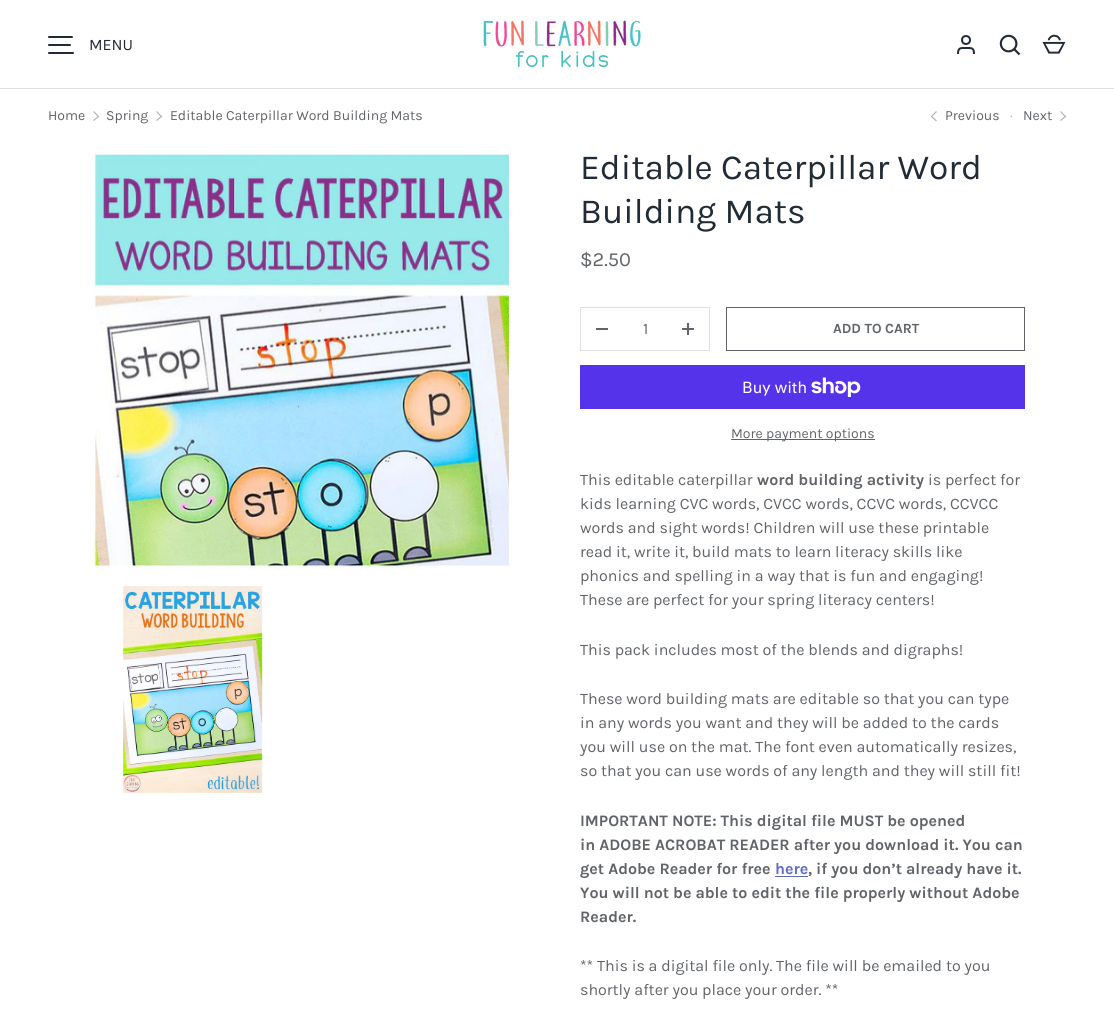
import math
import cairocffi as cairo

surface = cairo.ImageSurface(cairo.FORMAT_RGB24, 1114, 1033)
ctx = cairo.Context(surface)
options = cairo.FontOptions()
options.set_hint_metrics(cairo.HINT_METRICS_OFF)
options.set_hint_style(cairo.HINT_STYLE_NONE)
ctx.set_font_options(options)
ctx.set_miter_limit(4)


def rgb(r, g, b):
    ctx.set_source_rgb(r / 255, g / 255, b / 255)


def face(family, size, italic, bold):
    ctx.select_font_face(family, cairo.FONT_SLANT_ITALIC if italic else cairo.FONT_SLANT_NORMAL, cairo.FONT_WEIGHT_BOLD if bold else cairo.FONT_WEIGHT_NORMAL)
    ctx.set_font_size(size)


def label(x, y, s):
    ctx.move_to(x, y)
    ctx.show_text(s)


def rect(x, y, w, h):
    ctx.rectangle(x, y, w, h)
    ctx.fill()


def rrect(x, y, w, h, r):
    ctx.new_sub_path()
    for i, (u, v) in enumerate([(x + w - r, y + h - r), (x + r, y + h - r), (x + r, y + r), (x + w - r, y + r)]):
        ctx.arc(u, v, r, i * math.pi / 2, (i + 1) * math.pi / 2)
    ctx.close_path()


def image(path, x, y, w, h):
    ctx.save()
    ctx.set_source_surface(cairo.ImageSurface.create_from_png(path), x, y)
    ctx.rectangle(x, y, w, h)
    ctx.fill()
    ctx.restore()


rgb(255, 255, 255)
ctx.paint()
rgb(33, 43, 54)
rrect(48, 36, 25, 2, 1)
ctx.fill()
rrect(48, 44, 23, 2, 1)
ctx.fill()
rrect(48, 52, 26, 2, 1)
ctx.fill()
face('Karla', 16, 0, 0)
label(89, 50, 'MENU')
image('image0.png', 483, 20, 158, 48)
ctx.arc(966, 40, 4, 0, 2 * math.pi)
ctx.stroke()
ctx.new_path()
ctx.move_to(974, 54)
ctx.curve_to(974, 47.5, 971.5, 48, 966, 48)
ctx.curve_to(960.5, 48, 958, 47.5, 958, 54)
ctx.stroke()
image('image1.png', 999, 34, 22, 22)
image('image2.png', 1042, 34, 24, 20)
rgb(222, 223, 225)
rect(0, 88, 1114, 1)
face('Karla', 14, 0, 0)
rgb(96, 100, 104)
label(48, 120, 'Home')
ctx.new_path()
ctx.move_to(93.5, 111.5)
ctx.line_to(98.5, 116.5)
ctx.line_to(93.5, 120.5)
rgb(176, 178, 180)
ctx.set_line_width(1.2)
ctx.stroke()
rgb(96, 100, 104)
label(106, 120, 'Spring')
ctx.new_path()
ctx.move_to(156.5, 111.5)
ctx.line_to(161.5, 116.5)
ctx.line_to(156.5, 120.5)
rgb(176, 178, 180)
ctx.stroke()
rgb(96, 100, 104)
label(170, 120, 'Editable Caterpillar Word Building Mats')
ctx.new_path()
ctx.move_to(936.5, 111.5)
ctx.line_to(931.5, 116.5)
ctx.line_to(936.5, 121)
rgb(176, 178, 180)
ctx.stroke()
rgb(96, 100, 104)
label(945, 120, 'Previous')
rgb(176, 178, 180)
label(1010, 120, '·')
rgb(96, 100, 104)
label(1023, 120, 'Next')
ctx.new_path()
ctx.move_to(1060.5, 111.5)
ctx.line_to(1065.5, 116.5)
ctx.line_to(1060.5, 120.5)
rgb(176, 178, 180)
ctx.stroke()
image('image3.png', 89, 152, 423, 418)
image('image4.png', 123, 586, 140, 207)
face('Karla', 35.25, 0, 0)
rgb(33, 43, 54)
label(580, 179, 'Editable Caterpillar Word')
label(580, 223, 'Building Mats')
face('Karla', 20, 0, 0)
rgb(96, 100, 104)
label(580, 266, '$2.50')
ctx.rectangle(580.5, 307.5, 129, 43)
rgb(223, 224, 225)
ctx.set_line_width(1)
ctx.stroke()
rgb(96, 100, 104)
rect(596, 328, 12, 2)
face('Karla', 16, 0, 0)
label(643, 334, '1')
rect(682, 328, 12, 2)
rect(687, 323, 2, 12)
ctx.rectangle(726.5, 307.5, 298, 43)
ctx.stroke()
face('Karla', 14, 0, 1)
label(833, 333, 'ADD TO CART')
rgb(84, 51, 235)
rect(580, 365, 445, 44)
face('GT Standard', 16, 0, 0)
rgb(255, 255, 255)
label(742, 393, 'Buy with')
image('image5.png', 811, 377, 50, 20)
rgb(96, 100, 104)
rect(731, 439, 144, 1)
face('Karla', 14, 0, 0)
label(731, 438, 'More payment options')
face('Karla', 16, 0, 0)
label(580, 485, 'This editable caterpillar')
face('Karla', 16, 0, 1)
label(757, 485, 'word building activity')
face('Karla', 16, 0, 0)
label(928, 485, 'is perfect for')
label(580, 509, 'kids learning CVC words, CVCC words, CCVC words, CCVCC')
label(580, 533, 'words and sight words! Children will use these printable')
label(580, 557, 'read it, write it, build mats to learn literacy skills like')
label(580, 581, 'phonics and spelling in a way that is fun and engaging!')
label(580, 605, 'These are perfect for your spring literacy centers!')
label(580, 655, 'This pack includes most of the blends and digraphs!')
label(580, 704, 'These word building mats are editable so that you can type')
label(580, 728, 'in any words you want and they will be added to the cards')
label(580, 752, 'you will use on the mat. The font even automatically resizes,')
label(580, 776, 'so that you can use words of any length and they will still fit!')
face('Karla', 16, 0, 1)
label(580, 826, 'IMPORTANT NOTE: This digital file MUST be opened')
label(580, 850, 'in ADOBE ACROBAT READER after you download it. You can')
label(580, 874, 'get Adobe Reader for free')
rgb(92, 106, 196)
label(775, 874, 'here')
rgb(96, 100, 104)
label(808, 874, ', if you don’t already have it.')
rgb(92, 106, 196)
rect(775, 876, 33, 1)
rgb(96, 100, 104)
label(580, 898, 'You will not be able to edit the file properly without Adobe')
label(580, 922, 'Reader.')
face('Karla', 16, 0, 0)
label(580, 971, '** This is a digital file only. The file will be emailed to you')
label(580, 995, 'shortly after you place your order. **')
surface.write_to_png('render.png')
